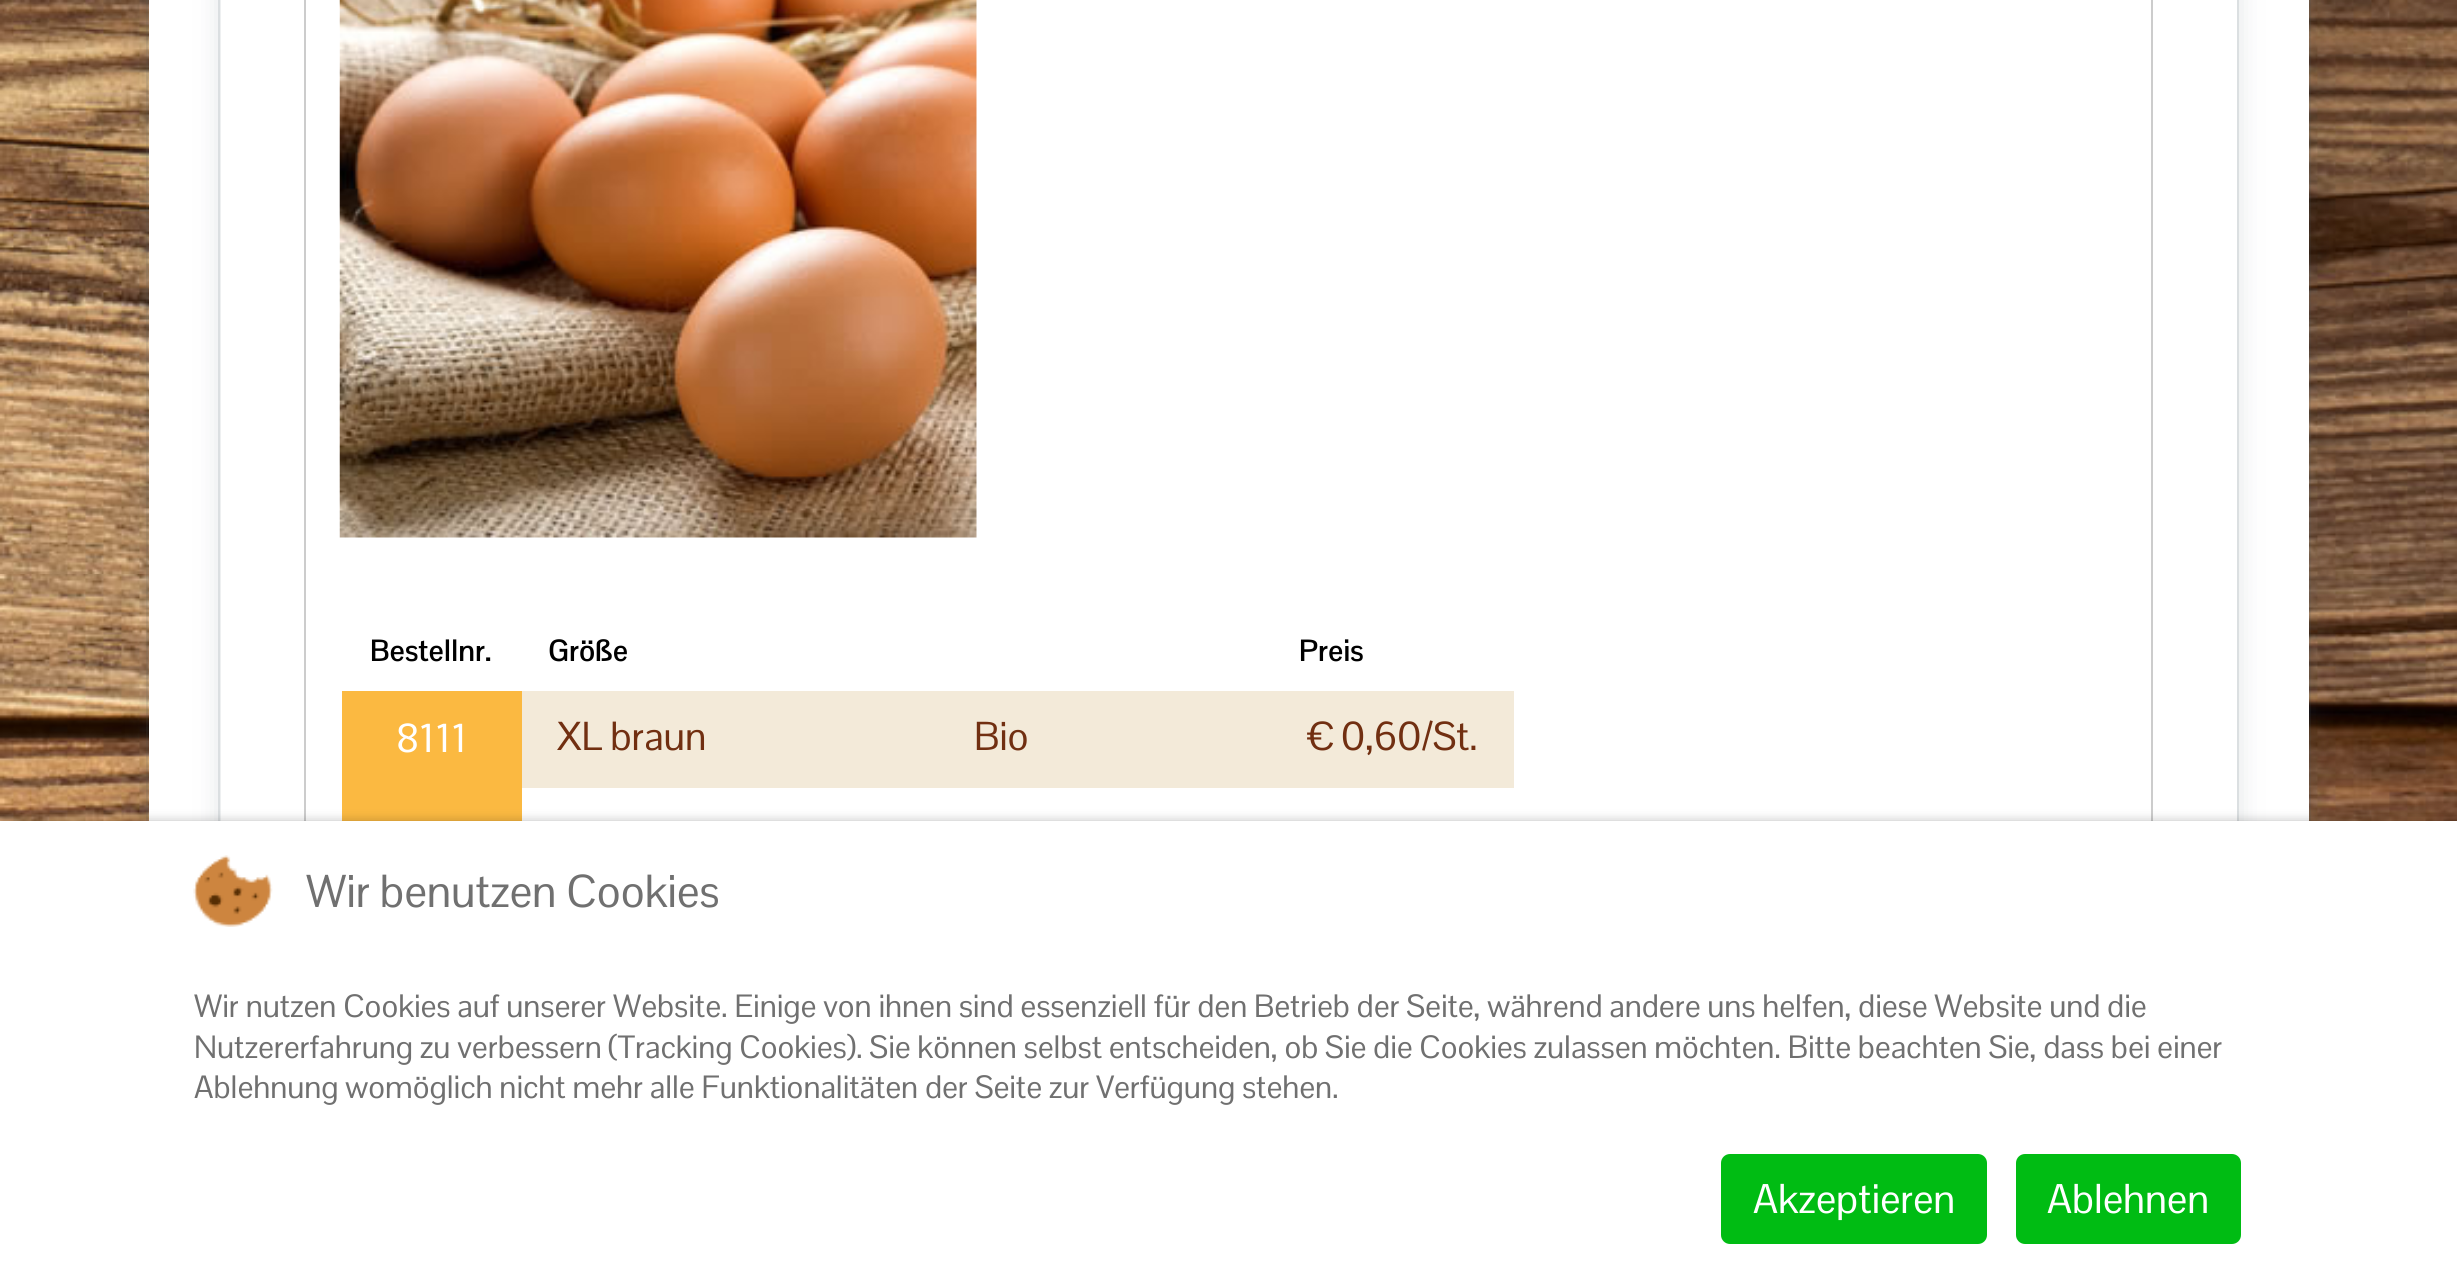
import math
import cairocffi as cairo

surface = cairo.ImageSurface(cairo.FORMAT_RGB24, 2457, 1277)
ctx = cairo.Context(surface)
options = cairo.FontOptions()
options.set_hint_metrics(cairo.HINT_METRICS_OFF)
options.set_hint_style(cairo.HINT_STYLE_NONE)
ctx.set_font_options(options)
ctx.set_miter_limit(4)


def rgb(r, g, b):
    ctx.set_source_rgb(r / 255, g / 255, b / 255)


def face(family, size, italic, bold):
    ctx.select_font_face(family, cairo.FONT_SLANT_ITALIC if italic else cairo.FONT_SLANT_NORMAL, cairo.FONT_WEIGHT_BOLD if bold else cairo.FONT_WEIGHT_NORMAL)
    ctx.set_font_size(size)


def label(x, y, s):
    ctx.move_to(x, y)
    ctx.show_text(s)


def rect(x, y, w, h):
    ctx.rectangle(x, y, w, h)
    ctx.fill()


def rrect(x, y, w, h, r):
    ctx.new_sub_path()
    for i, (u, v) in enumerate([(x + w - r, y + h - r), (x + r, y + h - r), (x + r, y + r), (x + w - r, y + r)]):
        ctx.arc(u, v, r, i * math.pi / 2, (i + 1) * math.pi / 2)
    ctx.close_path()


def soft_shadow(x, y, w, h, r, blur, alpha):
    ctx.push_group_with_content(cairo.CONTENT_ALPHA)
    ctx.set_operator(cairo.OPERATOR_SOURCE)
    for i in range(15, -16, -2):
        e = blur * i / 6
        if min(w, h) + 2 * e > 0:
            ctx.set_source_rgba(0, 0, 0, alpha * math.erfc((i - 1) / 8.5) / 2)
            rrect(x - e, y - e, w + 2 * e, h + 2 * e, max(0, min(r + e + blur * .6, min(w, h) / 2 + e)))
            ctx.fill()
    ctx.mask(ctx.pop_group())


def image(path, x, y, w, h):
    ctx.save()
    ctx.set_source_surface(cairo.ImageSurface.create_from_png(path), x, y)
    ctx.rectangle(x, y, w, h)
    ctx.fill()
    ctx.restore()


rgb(255, 255, 255)
ctx.paint()
image('image0.png', 0, 0, 2457, 821)
rgb(68, 89, 98)
soft_shadow(149, -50, 2160, 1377, 9, 13.5, 0.18)
ctx.rectangle(147, -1, 2163, 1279)
ctx.set_source_rgba(0.267, 0.349, 0.384, 0.12)
ctx.stroke()
rgb(255, 255, 255)
rect(149, 0, 2160, 821)
ctx.save()
ctx.set_fill_rule(cairo.FILL_RULE_EVEN_ODD)
ctx.new_path()
ctx.move_to(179, 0)
ctx.line_to(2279, 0)
ctx.line_to(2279, 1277)
ctx.line_to(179, 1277)
ctx.close_path()
ctx.move_to(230, -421)
ctx.line_to(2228, -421)
ctx.curve_to(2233, -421, 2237, -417, 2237, -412)
ctx.line_to(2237, 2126)
ctx.curve_to(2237, 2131, 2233, 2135, 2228, 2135)
ctx.line_to(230, 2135)
ctx.curve_to(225, 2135, 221, 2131, 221, 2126)
ctx.line_to(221, -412)
ctx.curve_to(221, -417, 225, -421, 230, -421)
ctx.close_path()
ctx.clip()
rgb(68, 89, 98)
soft_shadow(221, -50, 2016, 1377, 9, 13.5, 0.18)
ctx.restore()
ctx.rectangle(219, -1, 2019, 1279)
rgb(219, 223, 225)
ctx.stroke()
ctx.rectangle(305, -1, 1847, 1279)
rgb(204, 204, 204)
ctx.stroke()
image('image1.png', 339, 0, 638, 538)
face('Pontano Sans', 30, 0, 1)
rgb(0, 0, 0)
label(370, 661, 'Bestellnr.')
label(548, 661, 'Größe')
label(1299, 661, 'Preis')
rgb(243, 234, 217)
rect(522, 691, 992, 97)
rgb(251, 185, 65)
rect(342, 691, 180, 130)
face('Pontano Sans', 39.5, 0, 0)
rgb(255, 255, 255)
label(396, 752, '8111')
rgb(113, 47, 17)
label(557, 750, 'XL braun')
label(974, 750, 'Bio')
label(1308, 750, '€ 0,60/St.')
rgb(0, 0, 0)
soft_shadow(0, 821, 2457, 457, 0, 5.5, 0.25)
rgb(255, 255, 255)
rect(0, 821, 2457, 456)
image('image2.png', 193, 855, 80, 72)
face('Pontano Sans', 45, 0, 0)
rgb(112, 112, 112)
label(306, 907, 'Wir benutzen Cookies')
face('Pontano Sans', 31.5, 0, 0)
label(194, 1017, 'Wir nutzen Cookies auf unserer Website. Einige von ihnen sind essenziell für den Betrieb der Seite, während andere uns helfen, diese Website und die')
label(194, 1058, 'Nutzererfahrung zu verbessern (Tracking Cookies). Sie können selbst entscheiden, ob Sie die Cookies zulassen möchten. Bitte beachten Sie, dass bei einer')
label(194, 1098, 'Ablehnung womöglich nicht mehr alle Funktionalitäten der Seite zur Verfügung stehen.')
rgb(0, 188, 19)
rrect(1721, 1154, 266, 90, 9)
ctx.fill()
face('Pontano Sans', 40.5, 0, 0)
rgb(255, 255, 255)
label(1753, 1213, 'Akzeptieren')
rgb(0, 188, 19)
rrect(2016, 1154, 225, 90, 9)
ctx.fill()
rgb(255, 255, 255)
label(2047, 1213, 'Ablehnen')
surface.write_to_png('render.png')
